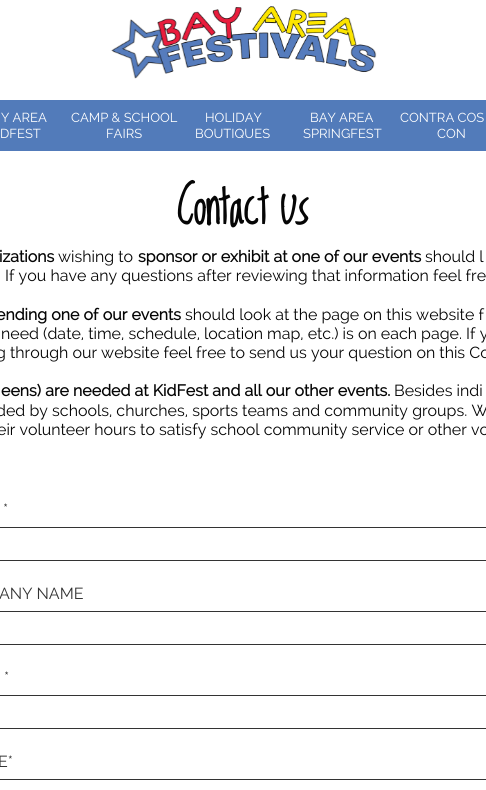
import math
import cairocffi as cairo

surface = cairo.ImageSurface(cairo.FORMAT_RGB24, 486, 790)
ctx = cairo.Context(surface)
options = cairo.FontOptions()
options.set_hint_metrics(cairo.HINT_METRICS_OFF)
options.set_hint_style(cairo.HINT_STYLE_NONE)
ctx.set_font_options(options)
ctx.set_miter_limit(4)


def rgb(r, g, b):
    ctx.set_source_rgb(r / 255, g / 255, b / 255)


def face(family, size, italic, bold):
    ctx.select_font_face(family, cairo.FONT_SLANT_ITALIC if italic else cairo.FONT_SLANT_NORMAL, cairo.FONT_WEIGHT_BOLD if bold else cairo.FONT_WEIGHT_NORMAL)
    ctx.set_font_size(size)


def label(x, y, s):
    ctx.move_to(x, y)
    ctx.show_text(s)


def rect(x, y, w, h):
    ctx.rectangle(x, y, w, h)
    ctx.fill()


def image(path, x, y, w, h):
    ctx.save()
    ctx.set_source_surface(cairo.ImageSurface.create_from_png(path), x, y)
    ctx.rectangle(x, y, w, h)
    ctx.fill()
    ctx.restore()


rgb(255, 255, 255)
ctx.paint()
image('image0.png', 111, 6, 266, 73)
rgb(82, 123, 186)
rect(0, 100, 486, 51)
face('Raleway', 13, 0, 0)
rgb(255, 255, 255)
label(1, 122, 'Y AREA')
label(0, 138, 'DFEST')
label(71, 122, 'CAMP & SCHOOL')
label(106, 138, 'FAIRS')
label(205, 122, 'HOLIDAY')
label(195, 138, 'BOUTIQUES')
label(310, 122, 'BAY AREA')
label(303, 138, 'SPRINGFEST')
label(400, 122, 'CONTRA COS')
label(437, 138, 'CON')
face('Loved by the King', 42, 0, 1)
rgb(5, 5, 5)
label(177, 224, 'Contact Us')
face('Raleway', 16, 0, 1)
label(-1, 262, 'izations')
face('Raleway', 16, 0, 0)
label(58, 262, 'wishing to')
face('Raleway', 16, 0, 1)
label(138, 262, 'sponsor or exhibit at one of our events')
face('Raleway', 16, 0, 0)
label(425, 262, 'should l')
label(5, 281, 'If you have any questions after reviewing that information feel fre')
face('Raleway', 16, 0, 1)
label(-4, 320, 'ending one of our events')
face('Raleway', 16, 0, 0)
label(185, 320, 'should look at the page on this website f')
label(1, 339, 'need (date, time, schedule, location map, etc.) is on each page. If y')
label(-4, 358, 'g through our website feel free to send us your question on this Co')
face('Raleway', 16, 0, 1)
label(1, 396, 'eens) are needed at KidFest and all our other events.')
face('Raleway', 16, 0, 0)
label(394, 396, 'Besides indi')
label(-4, 416, 'ded by schools, churches, sports teams and community groups. W')
label(-3, 435, 'eir volunteer hours to satisfy school community service or other vo')
rgb(51, 51, 51)
label(3, 515, '*')
ctx.rectangle(-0.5, 527.5, 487, 33)
ctx.set_line_width(1)
ctx.stroke()
label(-1, 599, 'ANY NAME')
ctx.rectangle(-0.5, 611.5, 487, 33)
ctx.stroke()
label(4, 683, '*')
ctx.rectangle(-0.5, 695.5, 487, 33)
ctx.stroke()
label(-2, 767, 'E*')
ctx.rectangle(-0.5, 779.5, 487, 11)
ctx.stroke()
surface.write_to_png('render.png')
